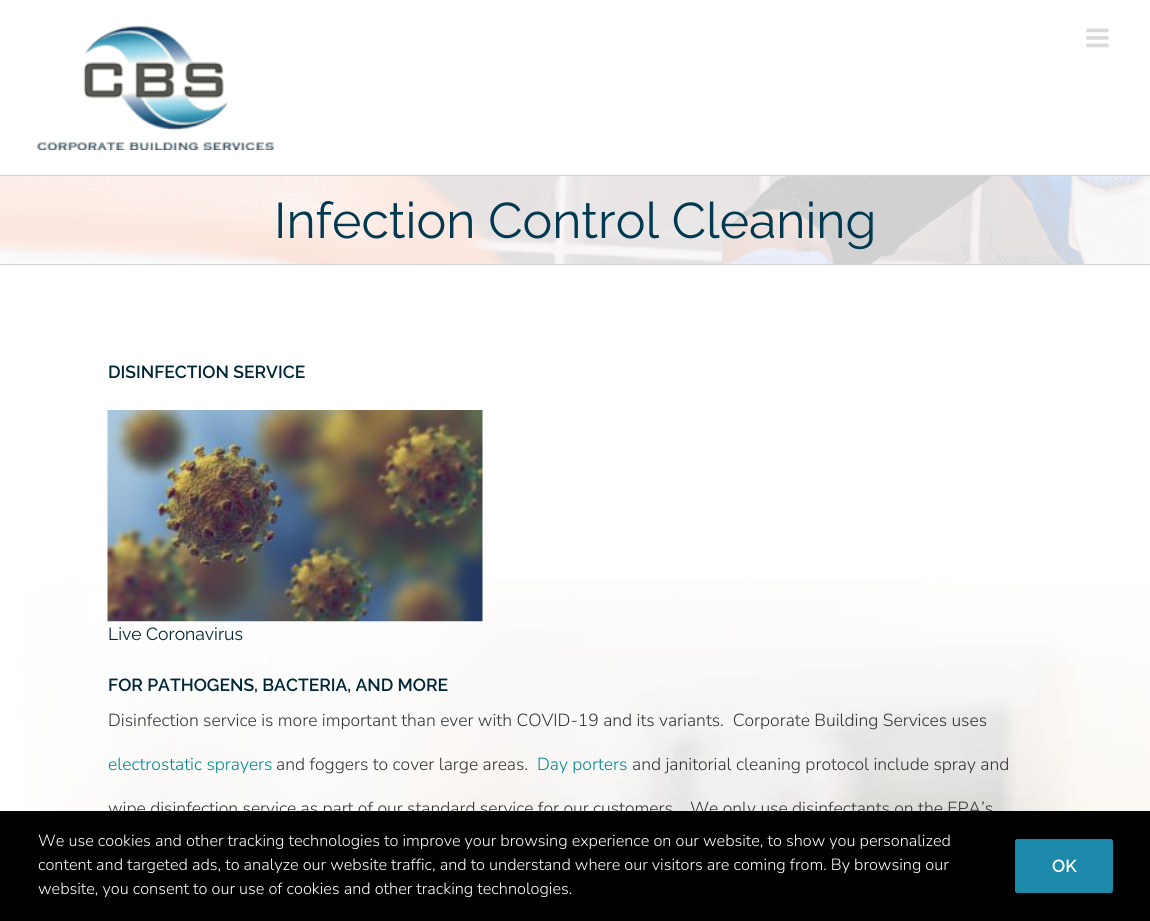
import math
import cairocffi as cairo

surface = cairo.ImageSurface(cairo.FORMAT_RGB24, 1150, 921)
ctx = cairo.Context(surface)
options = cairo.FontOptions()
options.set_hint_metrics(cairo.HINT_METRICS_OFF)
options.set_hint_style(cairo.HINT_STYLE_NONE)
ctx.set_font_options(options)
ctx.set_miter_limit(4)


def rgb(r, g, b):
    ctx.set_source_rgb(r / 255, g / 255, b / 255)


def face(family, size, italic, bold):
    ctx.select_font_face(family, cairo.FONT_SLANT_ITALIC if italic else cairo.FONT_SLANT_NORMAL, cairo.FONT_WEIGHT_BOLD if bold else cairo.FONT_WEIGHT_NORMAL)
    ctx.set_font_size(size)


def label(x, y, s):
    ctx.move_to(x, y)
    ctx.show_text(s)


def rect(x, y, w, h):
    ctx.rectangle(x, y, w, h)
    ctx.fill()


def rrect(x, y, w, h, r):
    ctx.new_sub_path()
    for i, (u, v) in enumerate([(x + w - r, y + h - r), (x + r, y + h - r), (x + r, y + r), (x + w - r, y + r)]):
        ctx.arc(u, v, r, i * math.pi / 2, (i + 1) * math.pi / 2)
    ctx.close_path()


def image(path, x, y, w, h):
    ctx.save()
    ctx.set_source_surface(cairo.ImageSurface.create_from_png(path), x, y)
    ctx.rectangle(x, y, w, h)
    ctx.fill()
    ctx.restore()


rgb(255, 255, 255)
ctx.paint()
image('image0.png', 37, 25, 237, 125)
image('image1.png', 1086, 28, 23, 20)
image('image2.png', 0, 176, 1150, 88)
rgb(210, 211, 212)
rect(0, 175, 1150, 1)
rect(0, 264, 1150, 1)
face('Raleway', 50, 0, 0)
rgb(0, 57, 80)
label(274, 238, 'Infection Control Cleaning')
image('image3.png', 23, 580, 1127, 231)
face('Raleway SemiBold', 17.5, 0, 0)
rgb(0, 37, 52)
label(108, 378, 'DISINFECTION SERVICE')
image('image4.png', 107, 410, 376, 212)
face('Raleway', 17.5, 0, 0)
label(108, 640, 'Live Coronavirus')
face('Raleway SemiBold', 17.5, 0, 0)
label(108, 691, 'FOR PATHOGENS, BACTERIA, AND MORE')
face('Nunito Sans Light', 17.5, 0, 0)
rgb(51, 51, 51)
label(108, 726, 'Disinfection service is more important than ever with COVID-19 and its variants.  Corporate Building Services uses')
rgb(0, 134, 141)
label(108, 770, 'electrostatic sprayers')
rgb(51, 51, 51)
label(276, 770, 'and foggers to cover large areas.')
rgb(0, 134, 141)
label(537, 770, 'Day porters')
rgb(51, 51, 51)
label(632, 770, 'and janitorial cleaning protocol include spray and')
label(108, 814, 'wipe disinfection service as part of our standard service for our customers.   We only use disinfectants on the EPA’s')
rgb(0, 0, 0)
rect(0, 811, 1150, 110)
face('Nunito Sans Light', 16.25, 0, 0)
rgb(255, 255, 255)
label(38, 846, 'We use cookies and other tracking technologies to improve your browsing experience on our website, to show you personalized')
label(38, 870, 'content and targeted ads, to analyze our website traffic, and to understand where our visitors are coming from. By browsing our')
label(38, 894, 'website, you consent to our use of cookies and other tracking technologies.')
rgb(28, 137, 171)
rrect(1015, 839, 98, 54, 2.5)
ctx.fill()
face('Raleway SemiBold', 17.5, 0, 0)
rgb(255, 255, 255)
label(1052, 872, 'OK')
surface.write_to_png('render.png')
